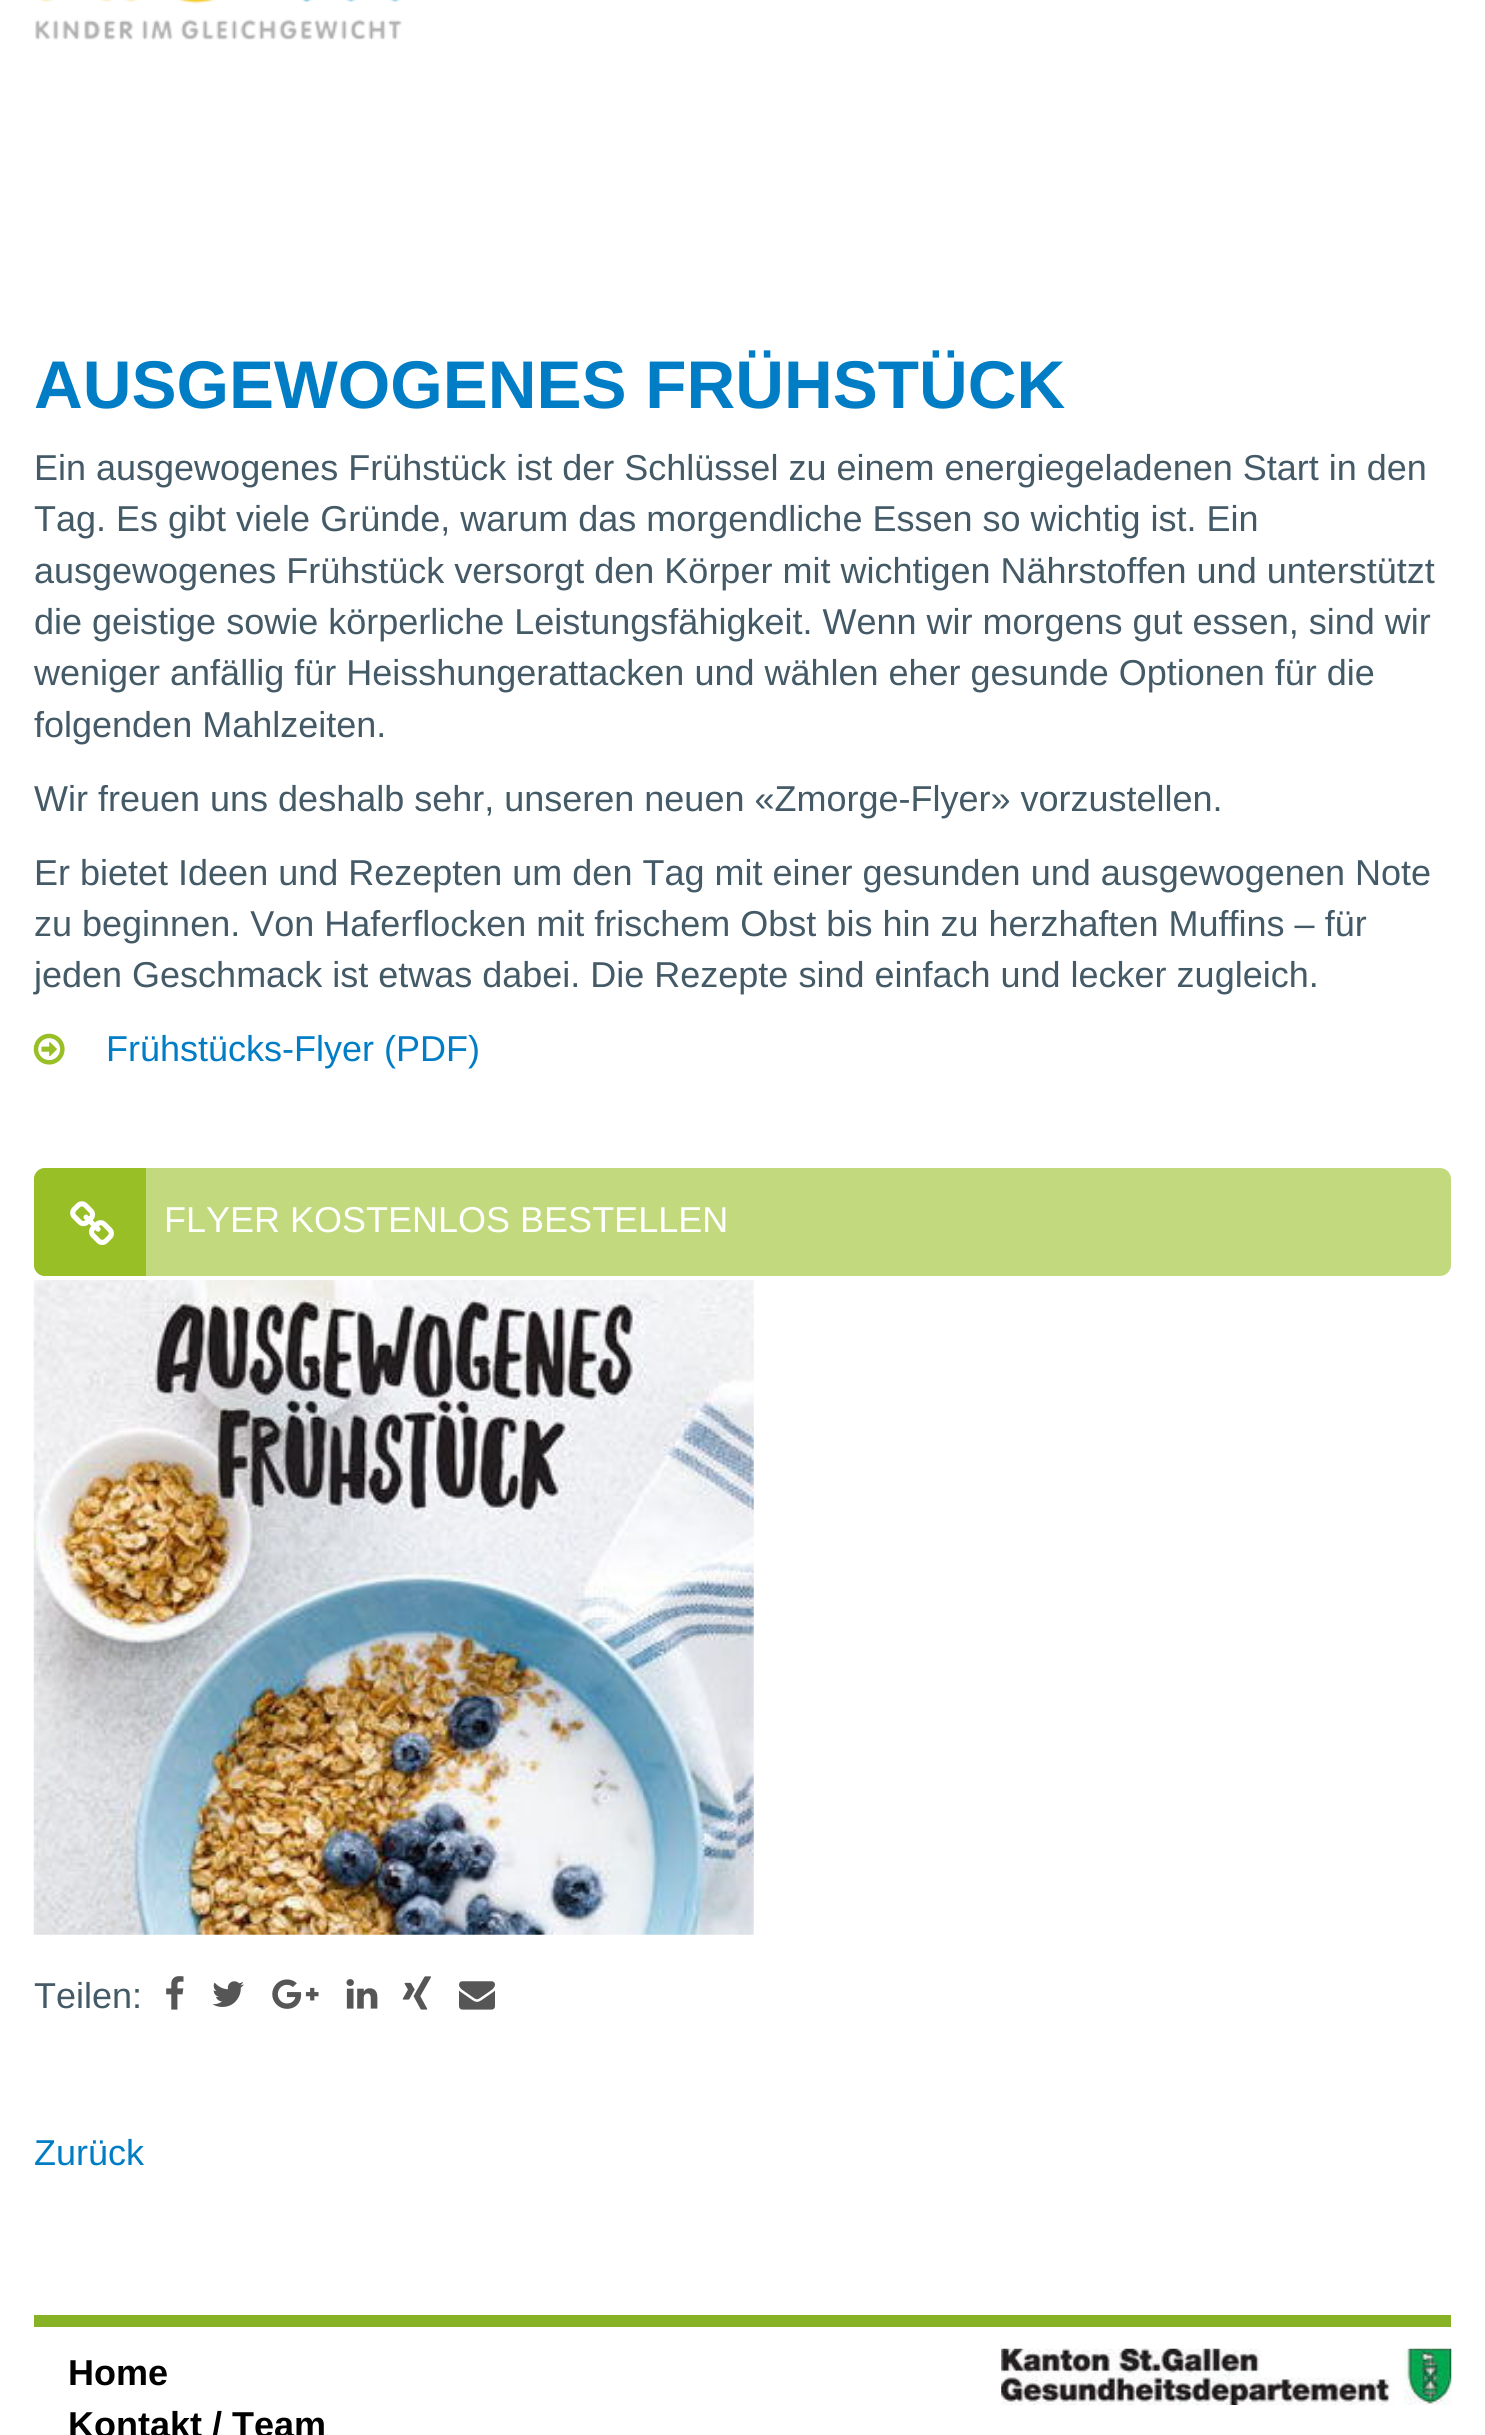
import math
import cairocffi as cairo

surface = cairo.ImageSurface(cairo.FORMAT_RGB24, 1485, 2435)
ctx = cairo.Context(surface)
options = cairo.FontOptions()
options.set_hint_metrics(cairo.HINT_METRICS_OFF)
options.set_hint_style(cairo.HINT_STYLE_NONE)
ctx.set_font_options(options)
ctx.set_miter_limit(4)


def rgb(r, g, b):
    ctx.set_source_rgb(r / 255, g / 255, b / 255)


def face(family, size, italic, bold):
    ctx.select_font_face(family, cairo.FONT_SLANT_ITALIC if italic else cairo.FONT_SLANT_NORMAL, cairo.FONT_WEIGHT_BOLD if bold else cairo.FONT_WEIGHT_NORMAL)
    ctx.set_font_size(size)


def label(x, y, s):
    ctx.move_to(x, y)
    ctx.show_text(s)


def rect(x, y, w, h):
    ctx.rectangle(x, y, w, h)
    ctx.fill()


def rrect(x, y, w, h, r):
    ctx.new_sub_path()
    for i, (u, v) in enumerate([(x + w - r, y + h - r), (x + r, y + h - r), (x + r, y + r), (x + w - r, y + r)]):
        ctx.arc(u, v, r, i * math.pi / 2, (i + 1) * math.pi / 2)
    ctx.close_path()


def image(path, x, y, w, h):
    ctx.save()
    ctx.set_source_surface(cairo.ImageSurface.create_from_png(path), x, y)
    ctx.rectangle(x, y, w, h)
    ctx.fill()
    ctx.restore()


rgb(255, 255, 255)
ctx.paint()
image('image0.png', 35, 0, 367, 40)
face('Liberation Sans', 67.5, 0, 1)
rgb(0, 125, 196)
label(34, 408, 'AUSGEWOGENES FRÜHSTÜCK')
face('Liberation Sans', 36, 0, 0)
rgb(68, 90, 103)
label(34, 480, 'Ein ausgewogenes Frühstück ist der Schlüssel zu einem energiegeladenen Start in den')
label(34, 531, 'Tag. Es gibt viele Gründe, warum das morgendliche Essen so wichtig ist. Ein')
label(34, 583, 'ausgewogenes Frühstück versorgt den Körper mit wichtigen Nährstoffen und unterstützt')
label(34, 634, 'die geistige sowie körperliche Leistungsfähigkeit. Wenn wir morgens gut essen, sind wir')
label(34, 685, 'weniger anfällig für Heisshungerattacken und wählen eher gesunde Optionen für die')
label(34, 737, 'folgenden Mahlzeiten.')
label(34, 811, 'Wir freuen uns deshalb sehr, unseren neuen «Zmorge-Flyer» vorzustellen.')
label(34, 885, 'Er bietet Ideen und Rezepten um den Tag mit einer gesunden und ausgewogenen Note')
label(34, 936, 'zu beginnen. Von Haferflocken mit frischem Obst bis hin zu herzhaften Muffins – für')
label(34, 987, 'jeden Geschmack ist etwas dabei. Die Rezepte sind einfach und lecker zugleich.')
image('image1.png', 33, 1033, 32, 32)
rgb(0, 125, 196)
label(106, 1061, 'Frühstücks-Flyer (PDF)')
rgb(194, 217, 125)
rrect(34, 1168, 1417, 108, 11)
ctx.fill()
rgb(153, 191, 39)
ctx.new_path()
ctx.move_to(45, 1168)
ctx.line_to(151, 1168)
ctx.line_to(151, 1276)
ctx.line_to(45, 1276)
ctx.curve_to(39, 1276, 34, 1271, 34, 1265)
ctx.line_to(34, 1179)
ctx.curve_to(34, 1173, 39, 1168, 45, 1168)
ctx.close_path()
ctx.fill()
rgb(194, 217, 125)
rect(146, 1168, 5, 108)
image('image2.png', 70, 1201, 44, 44)
rgb(255, 255, 255)
label(164, 1232, 'FLYER KOSTENLOS BESTELLEN')
image('image3.png', 33, 1280, 721, 655)
rgb(68, 90, 103)
label(34, 2008, 'Teilen:')
image('image4.png', 166, 1976, 18, 34)
image('image5.png', 212, 1981, 32, 26)
image('image6.png', 272, 1979, 47, 30)
image('image7.png', 346, 1979, 32, 30)
image('image8.png', 402, 1976, 29, 34)
image('image9.png', 459, 1981, 36, 29)
rgb(0, 125, 196)
label(34, 2165, 'Zurück')
rgb(136, 178, 38)
rect(34, 2315, 1417, 12)
face('Liberation Sans', 36, 0, 1)
rgb(0, 0, 0)
label(68, 2385, 'Home')
label(68, 2437, 'Kontakt / Team')
image('image10.png', 1001, 2348, 451, 57)
surface.write_to_png('render.png')
